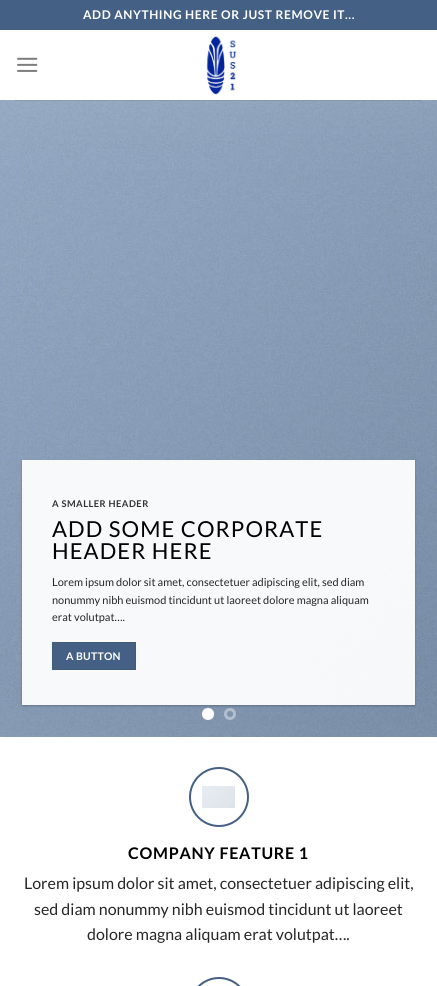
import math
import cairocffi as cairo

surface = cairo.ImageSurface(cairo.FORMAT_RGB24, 437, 986)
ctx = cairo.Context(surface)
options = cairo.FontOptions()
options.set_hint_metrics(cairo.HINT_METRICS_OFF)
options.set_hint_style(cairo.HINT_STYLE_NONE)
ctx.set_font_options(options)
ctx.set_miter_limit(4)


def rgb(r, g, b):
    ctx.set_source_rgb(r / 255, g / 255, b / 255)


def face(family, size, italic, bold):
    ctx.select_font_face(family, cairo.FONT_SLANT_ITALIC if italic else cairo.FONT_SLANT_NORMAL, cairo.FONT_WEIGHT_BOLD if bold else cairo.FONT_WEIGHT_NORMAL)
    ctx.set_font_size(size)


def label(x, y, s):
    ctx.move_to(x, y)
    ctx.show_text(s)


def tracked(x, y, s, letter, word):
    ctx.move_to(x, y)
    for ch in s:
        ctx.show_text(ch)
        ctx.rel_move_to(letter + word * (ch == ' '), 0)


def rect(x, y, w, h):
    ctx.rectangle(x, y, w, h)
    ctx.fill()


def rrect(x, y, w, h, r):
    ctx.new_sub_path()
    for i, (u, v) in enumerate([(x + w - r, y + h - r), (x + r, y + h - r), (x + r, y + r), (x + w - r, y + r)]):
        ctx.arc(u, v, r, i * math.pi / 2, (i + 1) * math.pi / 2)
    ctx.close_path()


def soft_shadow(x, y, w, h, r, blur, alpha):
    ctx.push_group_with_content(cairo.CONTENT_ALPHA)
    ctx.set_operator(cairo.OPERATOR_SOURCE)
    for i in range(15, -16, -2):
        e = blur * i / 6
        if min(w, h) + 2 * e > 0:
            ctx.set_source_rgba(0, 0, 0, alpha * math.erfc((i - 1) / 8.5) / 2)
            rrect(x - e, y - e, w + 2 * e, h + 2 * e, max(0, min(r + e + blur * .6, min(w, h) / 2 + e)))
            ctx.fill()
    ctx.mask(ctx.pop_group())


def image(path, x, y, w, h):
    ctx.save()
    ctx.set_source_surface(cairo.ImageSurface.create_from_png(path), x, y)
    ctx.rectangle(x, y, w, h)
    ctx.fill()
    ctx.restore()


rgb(255, 255, 255)
ctx.paint()
rgb(68, 96, 132)
rect(0, 0, 437, 30)
face('Lato', 12, 0, 1)
rgb(255, 255, 255)
tracked(83, 19, 'ADD ANYTHING HERE OR JUST REMOVE IT...', 0.6, 0)
image('image0.png', 17, 57, 21, 15)
image('image1.png', 206, 36, 31, 59)
image('image2.png', 0, 100, 437, 637)
ctx.set_source_rgba(0.149, 0.149, 0.149, 0.1)
rect(15, 100, 407, 1)
ctx.save()
ctx.set_fill_rule(cairo.FILL_RULE_EVEN_ODD)
ctx.new_path()
ctx.move_to(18, 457)
ctx.line_to(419, 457)
ctx.line_to(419, 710)
ctx.line_to(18, 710)
ctx.close_path()
ctx.move_to(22, 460)
ctx.line_to(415, 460)
ctx.line_to(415, 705)
ctx.line_to(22, 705)
ctx.close_path()
ctx.clip()
rgb(0, 0, 0)
soft_shadow(22, 461, 393, 245, 0, 1, 0.24)
ctx.restore()
ctx.set_source_rgba(1, 1, 1, 0.94)
rect(22, 460, 393, 245)
face('Lato', 9.3, 0, 1)
rgb(50, 50, 50)
tracked(52, 507, 'A SMALLER HEADER', 0.5, 0)
face('Lato', 22, 0, 0)
rgb(0, 0, 0)
tracked(52, 537, 'ADD SOME CORPORATE', 1.1, 0)
tracked(52, 559, 'HEADER HERE', 1.1, 0)
face('Lato', 11, 0, 0)
rgb(38, 38, 38)
label(52, 586, 'Lorem ipsum dolor sit amet, consectetuer adipiscing elit, sed diam')
label(52, 604, 'nonummy nibh euismod tincidunt ut laoreet dolore magna aliquam')
label(52, 621, 'erat volutpat….')
rgb(68, 96, 132)
ctx.rectangle(52.5, 642.5, 83, 27)
ctx.fill_preserve()
rgb(65, 91, 125)
ctx.set_line_width(1)
ctx.stroke()
face('Lato', 10.5, 0, 1)
rgb(255, 255, 255)
tracked(66, 660, 'A BUTTON', 0.25, 0)
ctx.new_path()
ctx.arc(208, 714, 4.5, 0, 2 * math.pi)
ctx.fill_preserve()
ctx.set_line_width(3)
ctx.stroke()
ctx.arc(230, 714, 4.5, 0, 2 * math.pi)
ctx.set_source_rgba(1, 1, 1, 0.4)
ctx.stroke()
ctx.arc(219, 797, 29, 0, 2 * math.pi)
rgb(68, 96, 132)
ctx.set_line_width(2)
ctx.stroke()
image('image3.png', 202, 786, 33, 22)
face('Lato', 16, 0, 1)
rgb(0, 0, 0)
tracked(128, 859, 'COMPANY FEATURE 1', 0.75, 0)
face('Lato', 16, 0, 0)
rgb(38, 38, 38)
label(24, 889, 'Lorem ipsum dolor sit amet, consectetuer adipiscing elit,')
label(34, 915, 'sed diam nonummy nibh euismod tincidunt ut laoreet')
label(87, 940, 'dolore magna aliquam erat volutpat….')
rrect(190, 978, 58, 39, 29)
rgb(68, 96, 132)
ctx.stroke()
surface.write_to_png('render.png')
